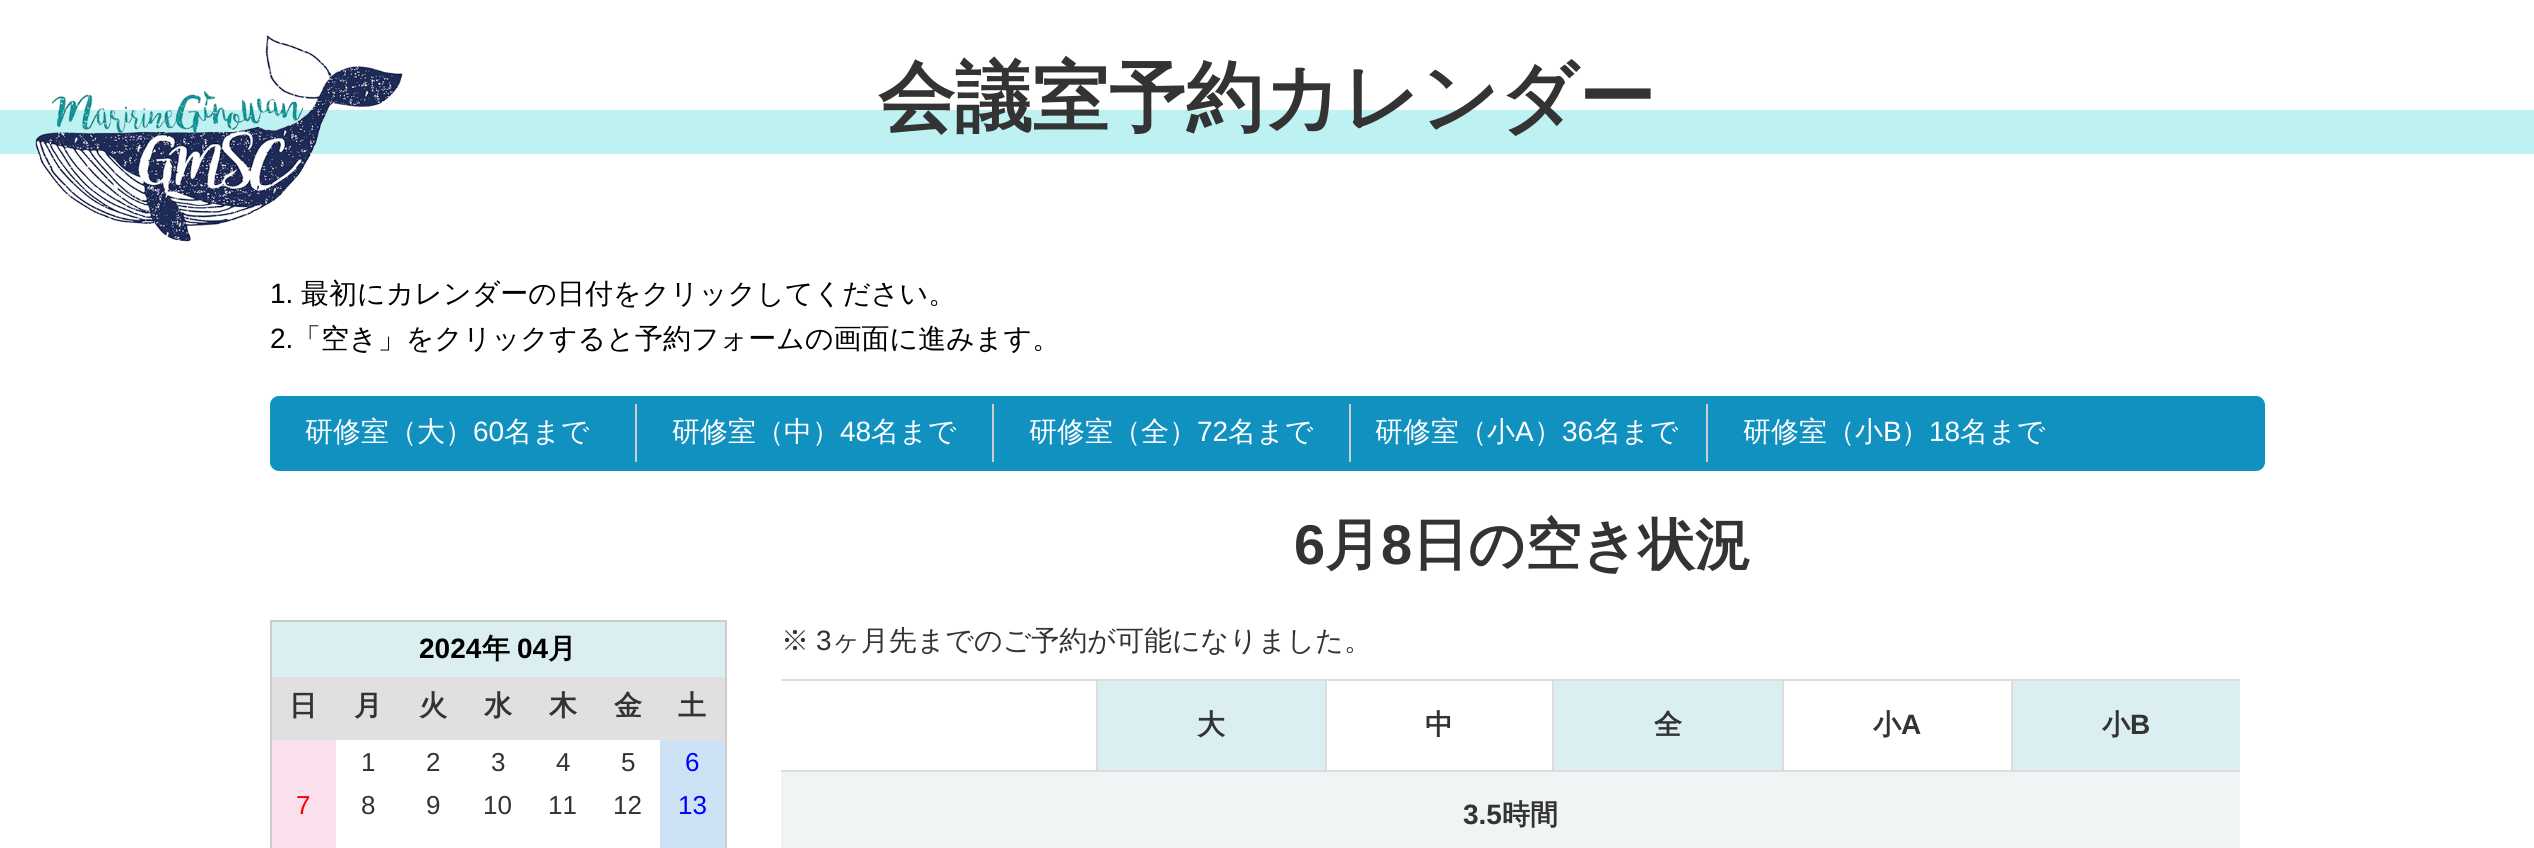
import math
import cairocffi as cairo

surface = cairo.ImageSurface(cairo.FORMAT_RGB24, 2534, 848)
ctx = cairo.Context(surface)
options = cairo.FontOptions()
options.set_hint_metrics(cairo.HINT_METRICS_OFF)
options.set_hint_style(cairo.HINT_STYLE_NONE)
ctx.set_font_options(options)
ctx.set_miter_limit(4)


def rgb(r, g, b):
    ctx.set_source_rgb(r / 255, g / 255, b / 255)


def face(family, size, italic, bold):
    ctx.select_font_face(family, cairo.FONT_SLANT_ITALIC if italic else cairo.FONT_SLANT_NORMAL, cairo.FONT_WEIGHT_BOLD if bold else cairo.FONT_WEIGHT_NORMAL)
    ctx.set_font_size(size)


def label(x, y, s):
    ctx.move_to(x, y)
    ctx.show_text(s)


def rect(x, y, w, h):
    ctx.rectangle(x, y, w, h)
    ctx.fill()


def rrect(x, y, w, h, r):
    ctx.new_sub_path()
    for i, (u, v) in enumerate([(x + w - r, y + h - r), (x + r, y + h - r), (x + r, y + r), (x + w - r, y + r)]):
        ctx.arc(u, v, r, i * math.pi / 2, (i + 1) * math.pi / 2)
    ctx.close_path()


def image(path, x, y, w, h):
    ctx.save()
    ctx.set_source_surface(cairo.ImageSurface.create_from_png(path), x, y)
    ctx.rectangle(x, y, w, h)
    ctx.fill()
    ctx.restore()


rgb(255, 255, 255)
ctx.paint()
rgb(190, 241, 242)
rect(0, 110, 2534, 44)
image('image0.png', 35, 35, 368, 207)
face('WenQuanYi Zen Hei', 77, 0, 1)
rgb(51, 51, 51)
label(878, 124, '会議室予約カレンダー')
face('Liberation Sans', 28, 0, 0)
rgb(0, 0, 0)
label(270, 303, '1.')
face('WenQuanYi Zen Hei Medium', 28, 0, 0)
label(301, 303, '最初にカレンダーの日付をクリックしてください。')
face('Liberation Sans', 28, 0, 0)
label(270, 348, '2.')
face('WenQuanYi Zen Hei Medium', 28, 0, 0)
label(293, 348, '「空き」をクリックすると予約フォームの画面に進みます。')
rgb(17, 145, 192)
rrect(270, 396, 1995, 75, 9)
ctx.fill()
rgb(204, 204, 204)
rect(635, 404, 2, 58)
rgb(255, 255, 255)
label(305, 441, '研修室（大）')
face('Liberation Sans', 28, 0, 0)
label(473, 441, '60')
face('WenQuanYi Zen Hei Medium', 28, 0, 0)
label(504, 441, '名まで')
rgb(204, 204, 204)
rect(992, 404, 2, 58)
rgb(255, 255, 255)
label(672, 441, '研修室（中）')
face('Liberation Sans', 28, 0, 0)
label(840, 441, '48')
face('WenQuanYi Zen Hei Medium', 28, 0, 0)
label(871, 441, '名まで')
rgb(204, 204, 204)
rect(1349, 404, 2, 58)
rgb(255, 255, 255)
label(1029, 441, '研修室（全）')
face('Liberation Sans', 28, 0, 0)
label(1197, 441, '72')
face('WenQuanYi Zen Hei Medium', 28, 0, 0)
label(1228, 441, '名まで')
rgb(204, 204, 204)
rect(1706, 404, 2, 58)
rgb(255, 255, 255)
label(1375, 441, '研修室（小')
face('Liberation Sans', 28, 0, 0)
label(1515, 441, 'A')
face('WenQuanYi Zen Hei Medium', 28, 0, 0)
label(1534, 441, '）')
face('Liberation Sans', 28, 0, 0)
label(1562, 441, '36')
face('WenQuanYi Zen Hei Medium', 28, 0, 0)
label(1593, 441, '名まで')
label(1743, 441, '研修室（小')
face('Liberation Sans', 28, 0, 0)
label(1883, 441, 'B')
face('WenQuanYi Zen Hei Medium', 28, 0, 0)
label(1901, 441, '）')
face('Liberation Sans', 28, 0, 0)
label(1929, 441, '18')
face('WenQuanYi Zen Hei Medium', 28, 0, 0)
label(1960, 441, '名まで')
rgb(219, 238, 242)
rect(272, 622, 453, 55)
rgb(204, 204, 204)
rect(270, 620, 456, 2)
rect(725, 620, 2, 57)
rect(270, 620, 2, 57)
face('Liberation Sans', 28, 0, 1)
rgb(0, 0, 0)
label(419, 658, '2024')
face('WenQuanYi Zen Hei', 28, 0, 1)
label(482, 658, '年')
face('Liberation Sans', 28, 0, 1)
label(517, 658, '04')
face('WenQuanYi Zen Hei', 28, 0, 1)
label(548, 658, '月')
rgb(204, 204, 204)
rect(725, 677, 2, 171)
rect(270, 677, 2, 171)
rgb(224, 224, 224)
rect(272, 677, 453, 63)
rgb(51, 51, 51)
label(289, 715, '日')
label(354, 715, '月')
label(419, 715, '火')
label(484, 715, '水')
label(549, 715, '木')
label(614, 715, '金')
label(678, 715, '土')
rgb(250, 223, 237)
rect(272, 740, 64, 108)
face('Liberation Sans', 26, 0, 0)
rgb(51, 51, 51)
label(361, 771, '1')
label(426, 771, '2')
label(491, 771, '3')
label(556, 771, '4')
label(621, 771, '5')
rgb(205, 227, 245)
rect(660, 740, 65, 108)
rgb(0, 0, 255)
label(685, 771, '6')
rgb(255, 0, 0)
label(296, 814, '7')
rgb(51, 51, 51)
label(361, 814, '8')
label(426, 814, '9')
label(483, 814, '10')
label(548, 814, '11')
label(613, 814, '12')
rgb(0, 0, 255)
label(678, 814, '13')
face('Liberation Sans', 56, 0, 1)
rgb(51, 51, 51)
label(1294, 564, '6')
face('WenQuanYi Zen Hei', 56, 0, 1)
label(1325, 564, '月')
face('Liberation Sans', 56, 0, 1)
label(1381, 564, '8')
face('WenQuanYi Zen Hei', 56, 0, 1)
label(1412, 564, '日の空き状況')
face('WenQuanYi Zen Hei Medium', 28, 0, 0)
label(781, 650, '※')
face('Liberation Sans', 28, 0, 0)
label(816, 650, '3')
face('WenQuanYi Zen Hei Medium', 28, 0, 0)
label(832, 650, 'ヶ月先までのご予約が可能になりました。')
rgb(221, 221, 221)
rect(781, 679, 1459, 2)
rgb(219, 238, 242)
rect(1098, 681, 227, 89)
rgb(221, 221, 221)
rect(781, 770, 1459, 2)
rect(1096, 679, 2, 93)
face('WenQuanYi Zen Hei', 28, 0, 1)
rgb(51, 51, 51)
label(1197, 734, '大')
rgb(221, 221, 221)
rect(1325, 679, 2, 93)
rgb(51, 51, 51)
label(1425, 734, '中')
rgb(219, 238, 242)
rect(1554, 681, 228, 89)
rgb(221, 221, 221)
rect(1552, 679, 2, 93)
rgb(51, 51, 51)
label(1654, 734, '全')
rgb(221, 221, 221)
rect(1782, 679, 2, 93)
rgb(51, 51, 51)
label(1873, 734, '小')
face('Liberation Sans', 28, 0, 1)
label(1901, 734, 'A')
rgb(219, 238, 242)
rect(2013, 681, 227, 89)
rgb(221, 221, 221)
rect(2011, 679, 2, 93)
face('WenQuanYi Zen Hei', 28, 0, 1)
rgb(51, 51, 51)
label(2102, 734, '小')
face('Liberation Sans', 28, 0, 1)
label(2130, 734, 'B')
rgb(240, 244, 244)
rect(781, 772, 1459, 76)
rgb(51, 51, 51)
label(1463, 824, '3.5')
face('WenQuanYi Zen Hei', 28, 0, 1)
label(1502, 824, '時間')
surface.write_to_png('render.png')
